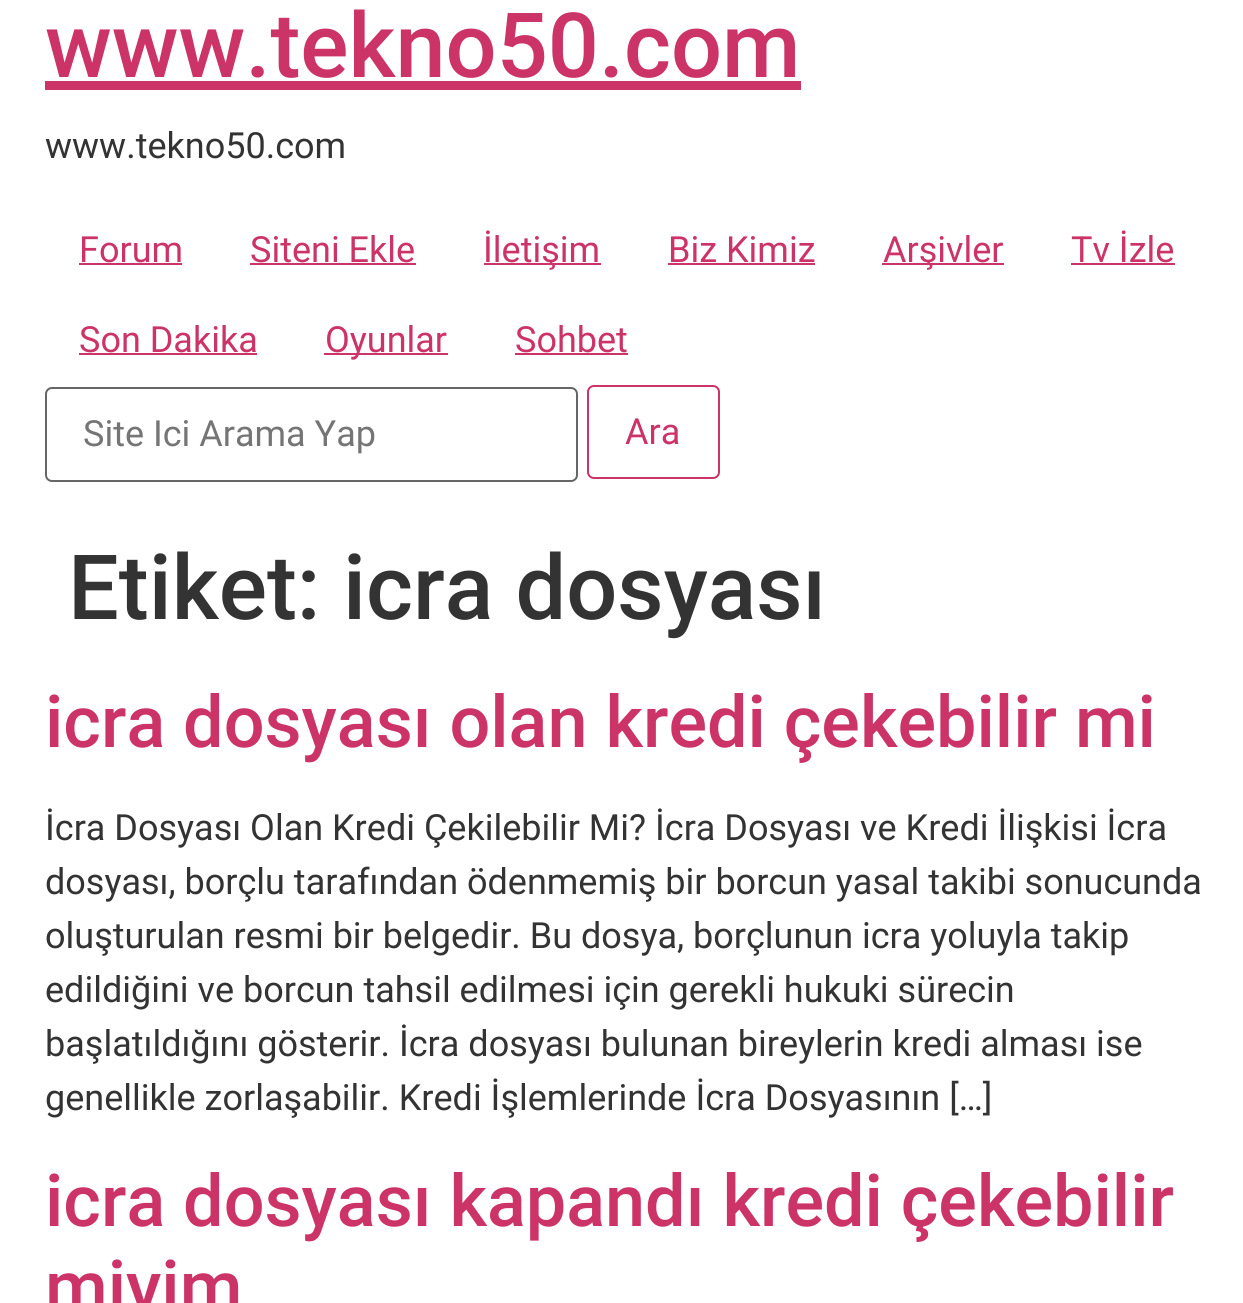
import math
import cairocffi as cairo

surface = cairo.ImageSurface(cairo.FORMAT_RGB24, 1243, 1303)
ctx = cairo.Context(surface)
options = cairo.FontOptions()
options.set_hint_metrics(cairo.HINT_METRICS_OFF)
options.set_hint_style(cairo.HINT_STYLE_NONE)
ctx.set_font_options(options)
ctx.set_miter_limit(4)


def rgb(r, g, b):
    ctx.set_source_rgb(r / 255, g / 255, b / 255)


def face(family, size, italic, bold):
    ctx.select_font_face(family, cairo.FONT_SLANT_ITALIC if italic else cairo.FONT_SLANT_NORMAL, cairo.FONT_WEIGHT_BOLD if bold else cairo.FONT_WEIGHT_NORMAL)
    ctx.set_font_size(size)


def label(x, y, s):
    ctx.move_to(x, y)
    ctx.show_text(s)


def rect(x, y, w, h):
    ctx.rectangle(x, y, w, h)
    ctx.fill()


def rrect(x, y, w, h, r):
    ctx.new_sub_path()
    for i, (u, v) in enumerate([(x + w - r, y + h - r), (x + r, y + h - r), (x + r, y + r), (x + w - r, y + r)]):
        ctx.arc(u, v, r, i * math.pi / 2, (i + 1) * math.pi / 2)
    ctx.close_path()


rgb(255, 255, 255)
ctx.paint()
face('Roboto Medium', 90, 0, 0)
rgb(204, 51, 102)
label(45, 77, 'www.tekno50.com')
rect(45, 81, 756, 9)
face('Roboto', 36, 0, 0)
rgb(51, 51, 51)
label(45, 158, 'www.tekno50.com')
rgb(204, 51, 102)
label(79, 262, 'Forum')
rect(79, 263, 103, 2)
label(250, 262, 'Siteni Ekle')
rect(250, 263, 166, 2)
rect(484, 263, 117, 2)
label(483, 262, 'İletişim')
label(668, 262, 'Biz Kimiz')
rect(668, 263, 147, 2)
rect(882, 263, 122, 2)
label(883, 262, 'Arşivler')
label(1071, 262, 'Tv İzle')
rect(1071, 263, 104, 2)
label(79, 352, 'Son Dakika')
rect(79, 353, 178, 2)
rect(324, 353, 124, 2)
label(325, 352, 'Oyunlar')
label(515, 352, 'Sohbet')
rect(515, 353, 113, 2)
rrect(46, 388, 531, 93, 6)
rgb(102, 102, 102)
ctx.stroke()
rgb(117, 117, 117)
label(83, 446, 'Site Ici Arama Yap')
rrect(588, 386, 131, 92, 6)
rgb(204, 51, 102)
ctx.stroke()
label(625, 444, 'Ara')
face('Roboto Medium', 90, 0, 0)
rgb(51, 51, 51)
label(68, 619, 'Etiket: icra dosyası')
face('Roboto Medium', 72, 0, 0)
rgb(204, 51, 102)
label(45, 747, 'icra dosyası olan kredi çekebilir mi')
face('Roboto', 36, 0, 0)
rgb(51, 51, 51)
label(45, 840, 'İcra Dosyası Olan Kredi Çekilebilir Mi? İcra Dosyası ve Kredi İlişkisi İcra')
label(45, 894, 'dosyası, borçlu tarafından ödenmemiş bir borcun yasal takibi sonucunda')
label(45, 948, 'oluşturulan resmi bir belgedir. Bu dosya, borçlunun icra yoluyla takip')
label(45, 1002, 'edildiğini ve borcun tahsil edilmesi için gerekli hukuki sürecin')
label(45, 1056, 'başlatıldığını gösterir. İcra dosyası bulunan bireylerin kredi alması ise')
label(45, 1110, 'genellikle zorlaşabilir. Kredi İşlemlerinde İcra Dosyasının […]')
face('Roboto Medium', 72, 0, 0)
rgb(204, 51, 102)
label(45, 1226, 'icra dosyası kapandı kredi çekebilir')
label(45, 1312, 'miyim')
surface.write_to_png('render.png')
